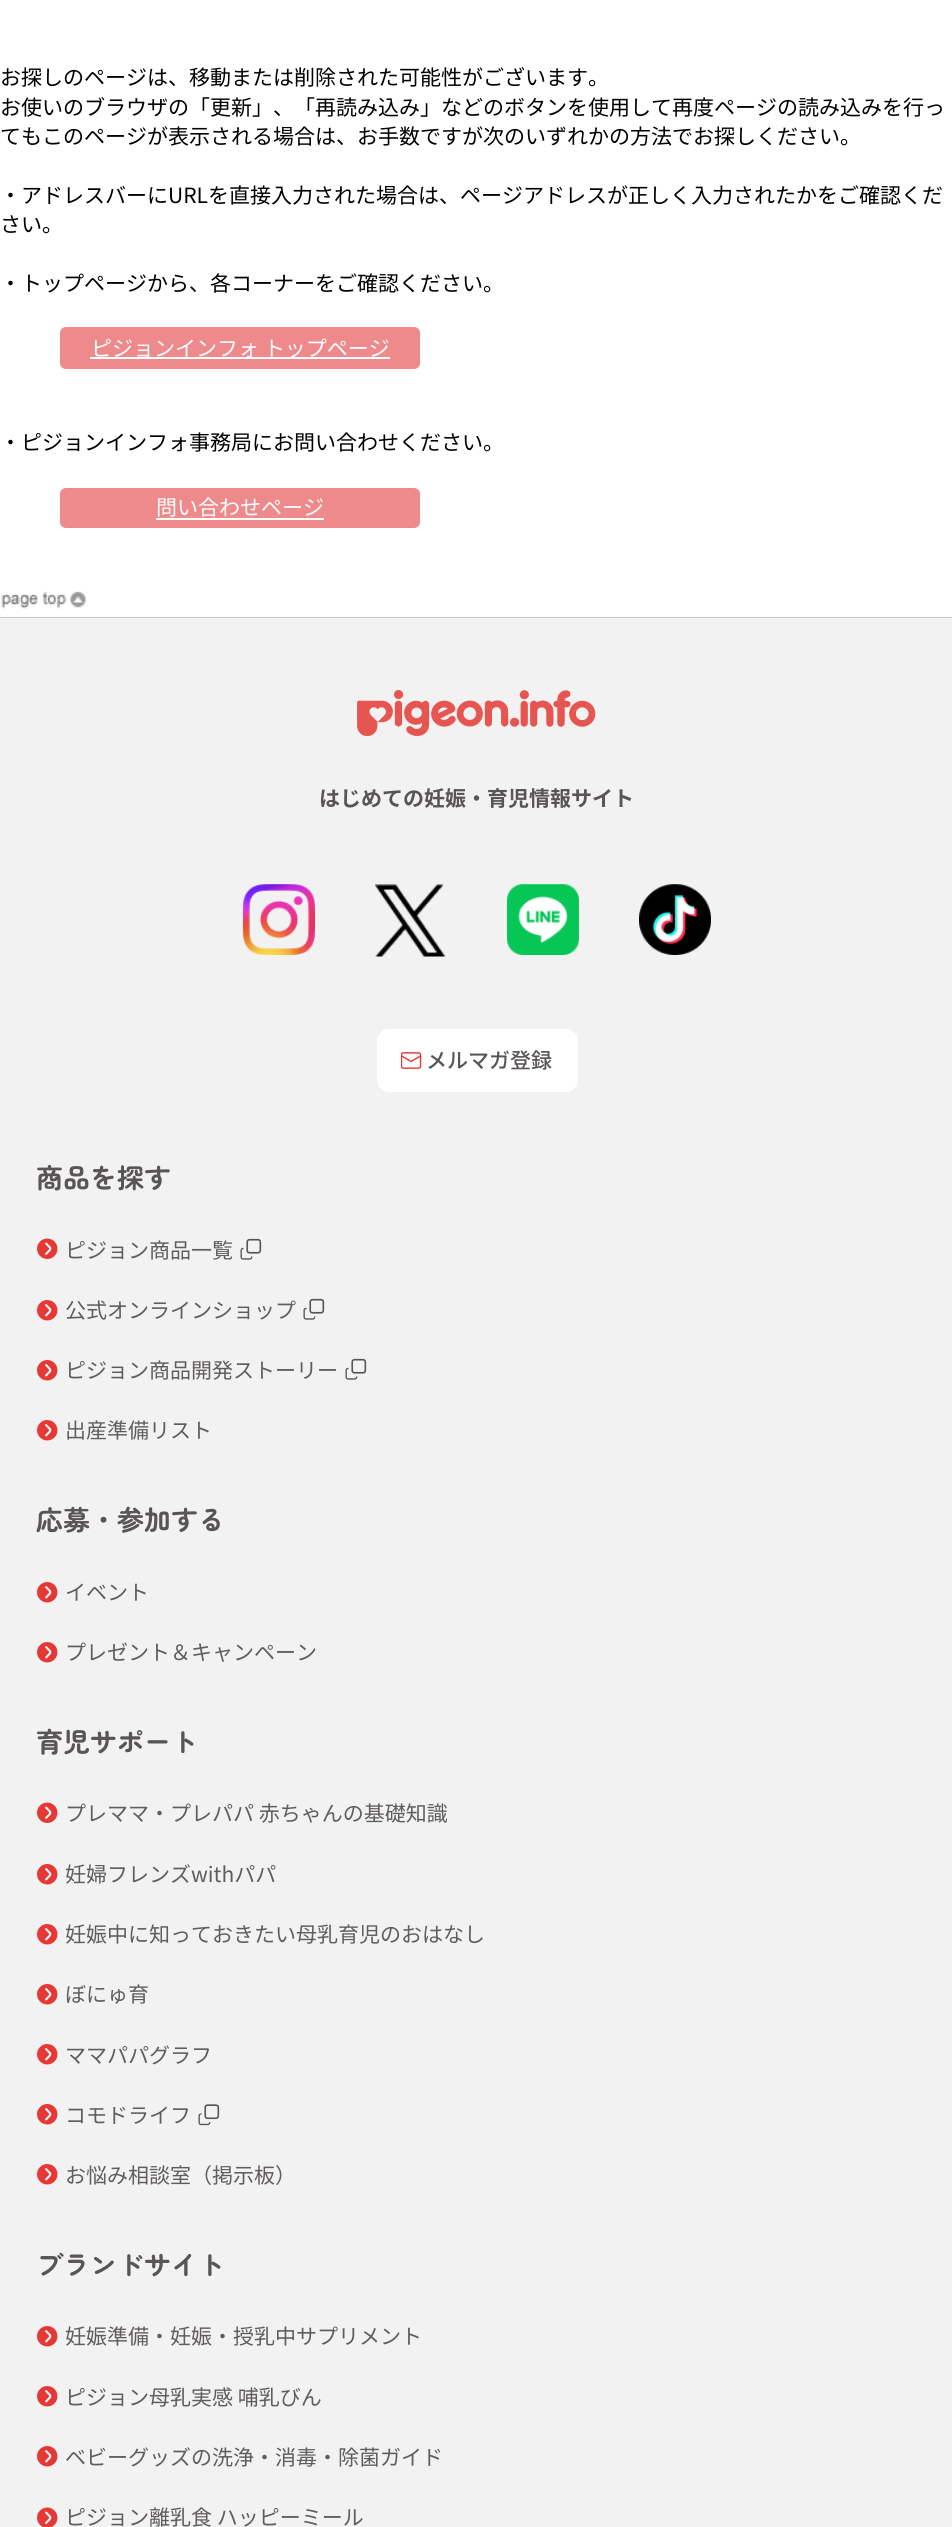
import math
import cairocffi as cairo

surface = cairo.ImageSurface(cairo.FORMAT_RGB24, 952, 2527)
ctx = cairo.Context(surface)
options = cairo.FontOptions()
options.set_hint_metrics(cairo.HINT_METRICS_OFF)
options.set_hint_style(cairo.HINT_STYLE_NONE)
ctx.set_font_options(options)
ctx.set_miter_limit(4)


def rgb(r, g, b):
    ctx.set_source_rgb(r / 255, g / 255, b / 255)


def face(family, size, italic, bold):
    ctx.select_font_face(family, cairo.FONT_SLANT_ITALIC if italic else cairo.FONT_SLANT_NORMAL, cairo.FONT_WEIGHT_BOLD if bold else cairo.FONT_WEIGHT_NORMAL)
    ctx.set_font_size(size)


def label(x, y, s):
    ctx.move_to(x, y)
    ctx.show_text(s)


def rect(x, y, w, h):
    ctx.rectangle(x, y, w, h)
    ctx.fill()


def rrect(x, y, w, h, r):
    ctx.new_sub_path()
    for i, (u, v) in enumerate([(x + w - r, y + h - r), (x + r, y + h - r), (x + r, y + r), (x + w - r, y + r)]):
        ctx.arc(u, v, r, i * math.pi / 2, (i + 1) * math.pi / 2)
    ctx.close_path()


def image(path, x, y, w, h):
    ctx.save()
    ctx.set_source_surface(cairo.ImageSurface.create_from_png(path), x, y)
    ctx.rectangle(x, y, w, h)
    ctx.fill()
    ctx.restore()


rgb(255, 255, 255)
ctx.paint()
face('Noto Sans JP', 21, 0, 0)
rgb(0, 0, 0)
label(0, 85, 'お探しのページは、移動または削除された可能性がございます。')
label(0, 115, 'お使いのブラウザの「更新」、「再読み込み」などのボタンを使用して再度ページの読み込みを行っ')
label(0, 144, 'てもこのページが表示される場合は、お手数ですが次のいずれかの方法でお探しください。')
label(0, 203, '・アドレスバーにURLを直接入力された場合は、ページアドレスが正しく入力されたかをご確認くだ')
label(0, 232, 'さい。')
label(0, 291, '・トップページから、各コーナーをご確認ください。')
rgb(238, 138, 139)
rrect(60, 327, 360, 42, 6)
ctx.fill()
rgb(255, 255, 255)
rect(90, 357, 300, 2)
label(91, 356, 'ピジョンインフォ トップページ')
rgb(0, 0, 0)
label(0, 450, '・ピジョンインフォ事務局にお問い合わせください。')
rgb(238, 138, 139)
rrect(60, 488, 360, 40, 6)
ctx.fill()
rgb(255, 255, 255)
label(156, 515, '問い合わせページ')
rect(156, 518, 168, 2)
image('image0.png', 1, 591, 85, 18)
rgb(204, 200, 200)
rect(0, 617, 952, 1)
rgb(242, 242, 242)
rect(0, 618, 952, 1909)
image('image1.png', 357, 690, 239, 47)
face('Noto Sans JP', 21, 0, 1)
rgb(89, 85, 85)
label(319, 806, 'はじめての妊娠・育児情報サイト')
image('image2.png', 243, 884, 72, 71)
image('image3.png', 375, 884, 71, 73)
image('image4.png', 507, 884, 72, 71)
image('image5.png', 639, 884, 72, 71)
rgb(255, 255, 255)
rrect(377, 1029, 201, 63, 12)
ctx.fill()
image('image6.png', 401, 1052, 21, 17)
face('Noto Sans JP Medium', 21, 0, 0)
rgb(89, 85, 85)
label(426, 1068, 'メルマガ登録')
face('Zen Maru Gothic', 27, 0, 1)
label(36, 1188, '商品を探す')
image('image7.png', 37, 1238, 21, 21)
face('Noto Sans JP', 21, 0, 0)
rgb(97, 93, 93)
label(65, 1258, 'ピジョン商品一覧')
image('image8.png', 240, 1238, 22, 22)
image('image9.png', 37, 1300, 21, 21)
label(65, 1318, '公式オンラインショップ')
image('image8.png', 303, 1298, 22, 22)
image('image9.png', 37, 1360, 21, 21)
label(65, 1378, 'ピジョン商品開発ストーリー')
image('image8.png', 345, 1358, 22, 22)
image('image9.png', 37, 1420, 21, 21)
label(65, 1438, '出産準備リスト')
face('Zen Maru Gothic', 27, 0, 1)
rgb(89, 85, 85)
label(36, 1530, '応募・参加する')
image('image9.png', 37, 1582, 21, 21)
face('Noto Sans JP', 21, 0, 0)
rgb(97, 93, 93)
label(65, 1600, 'イベント')
image('image9.png', 37, 1642, 21, 21)
label(65, 1660, 'プレゼント＆キャンペーン')
face('Zen Maru Gothic', 27, 0, 1)
rgb(89, 85, 85)
label(36, 1752, '育児サポート')
image('image7.png', 37, 1802, 21, 21)
face('Noto Sans JP', 21, 0, 0)
rgb(97, 93, 93)
label(65, 1821, 'プレママ・プレパパ 赤ちゃんの基礎知識')
image('image9.png', 37, 1864, 21, 21)
label(65, 1882, '妊婦フレンズwithパパ')
image('image9.png', 37, 1924, 21, 21)
label(65, 1942, '妊娠中に知っておきたい母乳育児のおはなし')
image('image9.png', 37, 1984, 21, 21)
label(65, 2002, 'ぼにゅ育')
image('image9.png', 37, 2044, 21, 21)
label(65, 2063, 'ママパパグラフ')
image('image9.png', 37, 2104, 21, 21)
label(65, 2123, 'コモドライフ')
image('image10.png', 198, 2104, 22, 22)
image('image9.png', 37, 2164, 21, 21)
label(65, 2183, 'お悩み相談室（掲示板）')
face('Zen Maru Gothic', 27, 0, 1)
rgb(89, 85, 85)
label(36, 2275, 'ブランドサイト')
image('image9.png', 37, 2326, 21, 21)
face('Noto Sans JP', 21, 0, 0)
rgb(97, 93, 93)
label(65, 2344, '妊娠準備・妊娠・授乳中サプリメント')
image('image9.png', 37, 2386, 21, 21)
label(65, 2405, 'ピジョン母乳実感 哺乳びん')
image('image9.png', 37, 2446, 21, 21)
label(65, 2465, 'ベビーグッズの洗浄・消毒・除菌ガイド')
image('image11.png', 37, 2507, 21, 20)
label(65, 2525, 'ピジョン離乳食 ハッピーミール')
surface.write_to_png('render.png')
